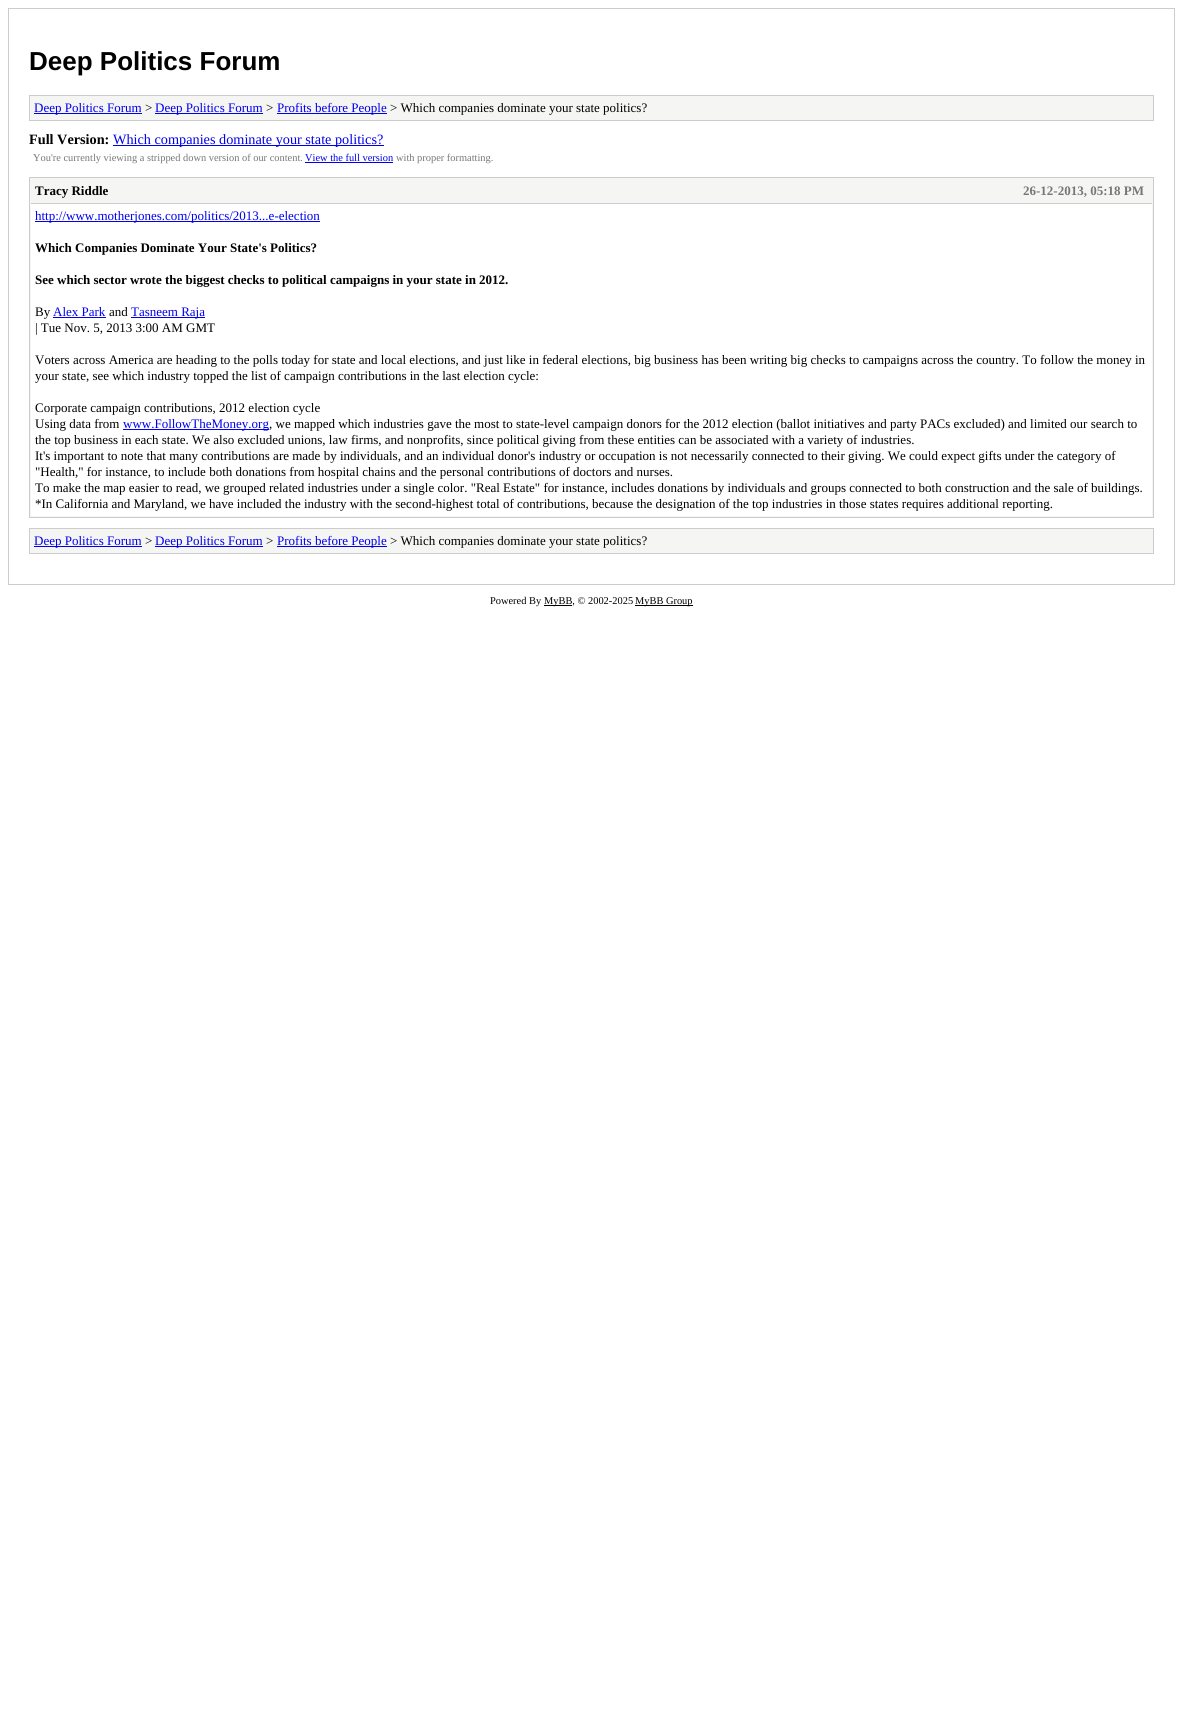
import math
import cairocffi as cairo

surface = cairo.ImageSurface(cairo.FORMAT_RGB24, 1183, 1713)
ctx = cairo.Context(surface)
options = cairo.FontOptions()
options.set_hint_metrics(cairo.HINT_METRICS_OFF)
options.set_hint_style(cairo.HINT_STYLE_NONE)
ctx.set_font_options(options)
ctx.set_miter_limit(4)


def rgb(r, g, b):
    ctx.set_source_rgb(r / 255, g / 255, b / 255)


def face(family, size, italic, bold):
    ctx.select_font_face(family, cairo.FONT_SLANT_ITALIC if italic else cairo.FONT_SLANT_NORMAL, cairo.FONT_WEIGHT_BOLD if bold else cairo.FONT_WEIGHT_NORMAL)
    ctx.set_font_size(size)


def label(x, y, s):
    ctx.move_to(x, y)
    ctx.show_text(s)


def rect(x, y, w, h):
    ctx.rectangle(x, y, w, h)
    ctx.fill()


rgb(255, 255, 255)
ctx.paint()
ctx.rectangle(8.5, 8.5, 1166, 576)
rgb(204, 204, 204)
ctx.set_line_width(1)
ctx.stroke()
face('Liberation Sans', 26, 0, 1)
rgb(0, 0, 0)
label(29, 70, 'Deep Politics Forum')
rgb(245, 245, 244)
ctx.rectangle(29.5, 95.5, 1124, 25)
ctx.fill_preserve()
rgb(204, 204, 204)
ctx.stroke()
rgb(0, 0, 238)
rect(34, 113, 108, 1)
face('Liberation Serif', 13, 0, 0)
label(34, 112, 'Deep Politics Forum')
rgb(0, 0, 0)
label(145, 112, '>')
rgb(0, 0, 238)
rect(155, 113, 108, 1)
label(155, 112, 'Deep Politics Forum')
rgb(0, 0, 0)
label(266, 112, '>')
rgb(0, 0, 238)
rect(277, 113, 110, 1)
label(277, 112, 'Profits before People')
rgb(0, 0, 0)
label(390, 112, '> Which companies dominate your state politics?')
face('Liberation Serif', 14.25, 0, 1)
label(29, 144, 'Full Version:')
rgb(0, 0, 238)
rect(113, 145, 271, 1)
face('Liberation Serif', 14.25, 0, 0)
label(113, 144, 'Which companies dominate your state politics?')
face('Liberation Serif', 10.4, 0, 0)
rgb(119, 119, 119)
label(33, 161, 'You\'re currently viewing a stripped down version of our content.')
rgb(0, 0, 238)
label(305, 161, 'View the full version')
rect(305, 162, 88, 1)
rgb(119, 119, 119)
label(396, 161, 'with proper formatting.')
rgb(245, 245, 244)
ctx.rectangle(29.5, 177.5, 1124, 340)
ctx.fill_preserve()
rgb(204, 204, 204)
ctx.stroke()
rect(31, 203, 1121, 1)
face('Liberation Serif', 13, 0, 1)
rgb(0, 0, 0)
label(35, 195, 'Tracy Riddle')
rgb(119, 119, 119)
label(1023, 195, '26-12-2013, 05:18 PM')
rgb(255, 255, 255)
rect(31, 204, 1121, 312)
rgb(0, 0, 238)
rect(35, 221, 285, 1)
face('Liberation Serif', 13, 0, 0)
label(35, 220, 'http://www.motherjones.com/politics/2013...e-election')
face('Liberation Serif', 13, 0, 1)
rgb(0, 0, 0)
label(35, 252, 'Which Companies Dominate Your State\'s Politics?')
label(35, 284, 'See which sector wrote the biggest checks to political campaigns in your state in 2012.')
face('Liberation Serif', 13, 0, 0)
label(35, 316, 'By')
rgb(0, 0, 238)
label(53, 316, 'Alex Park')
rect(53, 317, 53, 1)
rgb(0, 0, 0)
label(109, 316, 'and')
rgb(0, 0, 238)
rect(131, 317, 74, 1)
label(131, 316, 'Tasneem Raja')
rgb(0, 0, 0)
label(35, 332, '| Tue Nov. 5, 2013 3:00 AM GMT')
label(35, 364, 'Voters across America are heading to the polls today for state and local elections, and just like in federal elections, big business has been writing big checks to campaigns across the country. To follow the money in')
label(35, 380, 'your state, see which industry topped the list of campaign contributions in the last election cycle:')
label(35, 412, 'Corporate campaign contributions, 2012 election cycle')
label(35, 428, 'Using data from')
rgb(0, 0, 238)
rect(123, 429, 146, 1)
label(123, 428, 'www.FollowTheMoney.org')
rgb(0, 0, 0)
label(269, 428, ', we mapped which industries gave the most to state-level campaign donors for the 2012 election (ballot initiatives and party PACs excluded) and limited our search to')
label(35, 444, 'the top business in each state. We also excluded unions, law firms, and nonprofits, since political giving from these entities can be associated with a variety of industries.')
label(35, 460, 'It\'s important to note that many contributions are made by individuals, and an individual donor\'s industry or occupation is not necessarily connected to their giving. We could expect gifts under the category of')
label(35, 476, '"Health," for instance, to include both donations from hospital chains and the personal contributions of doctors and nurses.')
label(35, 492, 'To make the map easier to read, we grouped related industries under a single color. "Real Estate" for instance, includes donations by individuals and groups connected to both construction and the sale of buildings.')
label(35, 508, '*In California and Maryland, we have included the industry with the second-highest total of contributions, because the designation of the top industries in those states requires additional reporting.')
rgb(245, 245, 244)
ctx.rectangle(29.5, 528.5, 1124, 25)
ctx.fill_preserve()
rgb(204, 204, 204)
ctx.stroke()
rgb(0, 0, 238)
rect(34, 546, 108, 1)
label(34, 545, 'Deep Politics Forum')
rgb(0, 0, 0)
label(145, 545, '>')
rgb(0, 0, 238)
rect(155, 546, 108, 1)
label(155, 545, 'Deep Politics Forum')
rgb(0, 0, 0)
label(266, 545, '>')
rgb(0, 0, 238)
rect(277, 546, 110, 1)
label(277, 545, 'Profits before People')
rgb(0, 0, 0)
label(390, 545, '> Which companies dominate your state politics?')
face('Liberation Serif', 10.4, 0, 0)
label(490, 604, 'Powered By')
rect(544, 605, 28, 1)
label(544, 604, 'MyBB, © 2002-2025')
rect(635, 605, 58, 1)
label(635, 604, 'MyBB Group')
surface.write_to_png('render.png')
